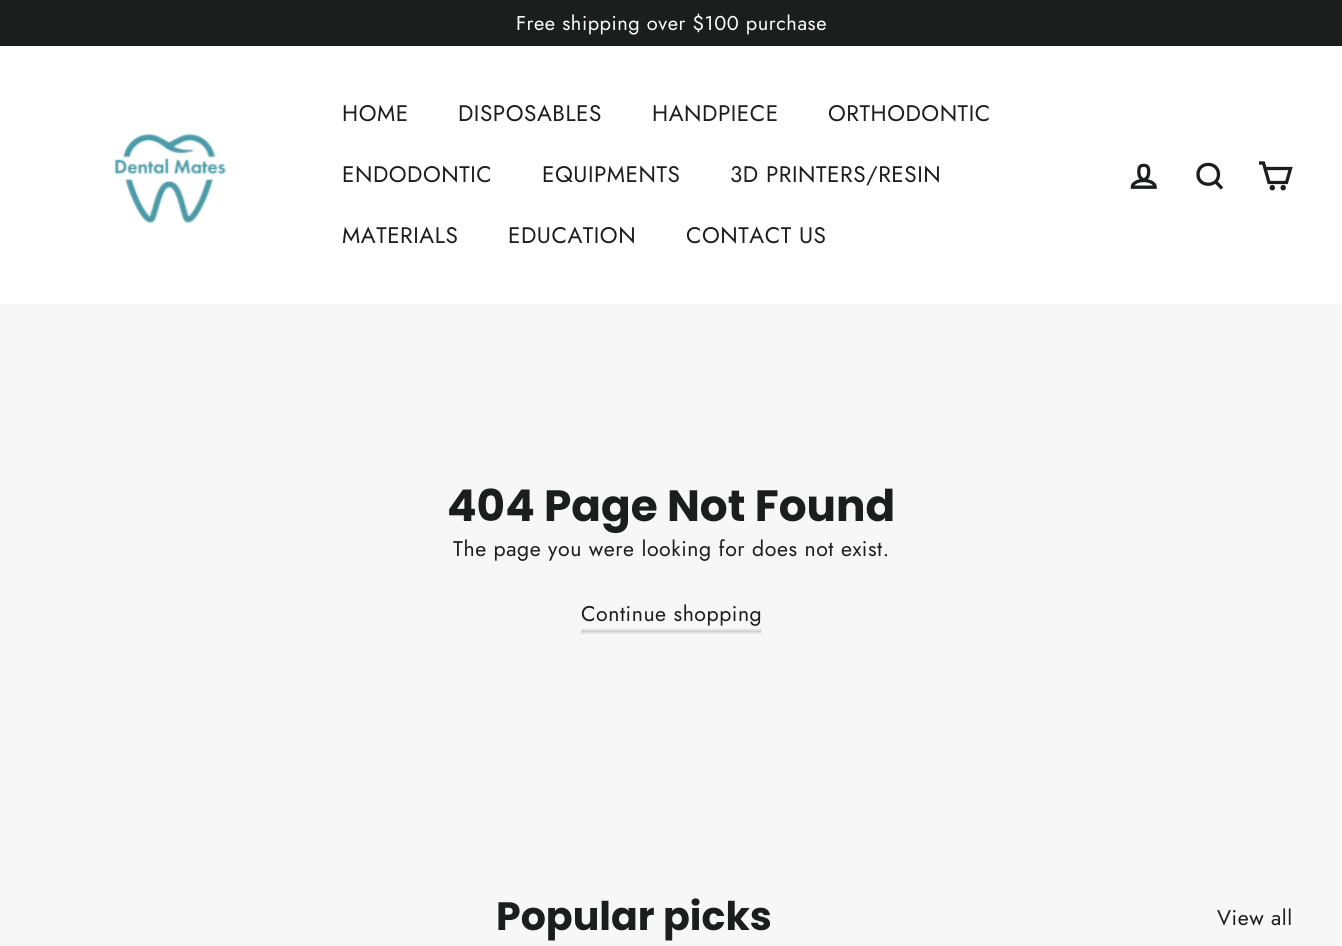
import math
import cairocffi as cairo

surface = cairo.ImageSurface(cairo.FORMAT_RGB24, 1342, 946)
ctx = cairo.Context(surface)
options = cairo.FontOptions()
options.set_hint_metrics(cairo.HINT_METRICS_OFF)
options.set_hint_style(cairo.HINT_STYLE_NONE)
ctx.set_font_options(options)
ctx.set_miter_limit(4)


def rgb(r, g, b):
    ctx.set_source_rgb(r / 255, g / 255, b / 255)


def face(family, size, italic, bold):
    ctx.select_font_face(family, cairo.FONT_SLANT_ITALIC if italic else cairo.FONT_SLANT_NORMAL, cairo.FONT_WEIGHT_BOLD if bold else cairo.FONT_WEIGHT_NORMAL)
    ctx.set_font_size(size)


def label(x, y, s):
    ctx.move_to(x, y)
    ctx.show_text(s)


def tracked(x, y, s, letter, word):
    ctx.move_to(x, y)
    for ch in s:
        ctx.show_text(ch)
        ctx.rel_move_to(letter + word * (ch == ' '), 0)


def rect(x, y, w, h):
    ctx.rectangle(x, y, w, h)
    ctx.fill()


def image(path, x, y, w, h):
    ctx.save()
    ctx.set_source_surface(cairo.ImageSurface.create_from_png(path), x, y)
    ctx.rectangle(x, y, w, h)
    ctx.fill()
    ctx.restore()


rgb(247, 247, 247)
ctx.paint()
rgb(225, 225, 225)
rect(581, 632, 180, 2)
rgb(28, 29, 29)
rect(0, 0, 1342, 46)
face('Jost', 20, 0, 0)
rgb(255, 255, 255)
tracked(516, 30, 'Free shipping over $100 purchase', 0.55, 0)
rect(0, 46, 1342, 258)
image('image0.png', 114, 134, 113, 90)
face('Jost', 22.5, 0, 0)
rgb(28, 29, 29)
tracked(342, 121, 'HOME', 0.55, 0)
tracked(458, 121, 'DISPOSABLES', 0.55, 0)
tracked(652, 121, 'HANDPIECE', 0.55, 0)
tracked(828, 121, 'ORTHODONTIC', 0.55, 0)
tracked(342, 182, 'ENDODONTIC', 0.55, 0)
tracked(542, 182, 'EQUIPMENTS', 0.55, 0)
tracked(730, 182, '3D PRINTERS/RESIN', 0.55, 0)
tracked(342, 243, 'MATERIALS', 0.55, 0)
tracked(508, 243, 'EDUCATION', 0.55, 0)
tracked(686, 243, 'CONTACT US', 0.55, 0)
image('image1.png', 1130, 163, 27, 26)
ctx.new_path()
ctx.move_to(1218.5, 174.5)
ctx.curve_to(1218.5, 187.5, 1198, 187.5, 1198, 174.5)
ctx.curve_to(1198, 161, 1218.5, 161, 1218.5, 174.5)
ctx.close_path()
ctx.move_to(1222, 188.5)
ctx.line_to(1215.5, 181.5)
ctx.set_line_width(3.3)
ctx.stroke()
ctx.new_path()
ctx.move_to(1265, 168.5)
ctx.line_to(1290.5, 168.5)
ctx.line_to(1286.5, 182.5)
ctx.line_to(1269, 182.5)
ctx.line_to(1263.5, 163)
ctx.line_to(1259, 163)
ctx.stroke()
ctx.arc(1272.3, 187.7, 1.1, 0, 2 * math.pi)
ctx.fill_preserve()
ctx.stroke()
ctx.arc(1283.2, 187.7, 1.1, 0, 2 * math.pi)
ctx.fill_preserve()
ctx.stroke()
face('Poppins', 43.75, 0, 1)
label(447, 521, '404 Page Not Found')
face('Jost', 21.25, 0, 0)
tracked(453, 556, 'The page you were looking for does not exist.', 0.55, 0)
tracked(581, 621, 'Continue shopping', 0.55, 0)
rgb(225, 225, 225)
rect(581, 629, 180, 2)
rgb(205, 205, 205)
rect(581, 631, 180, 1)
face('Poppins', 39.5, 0, 1)
rgb(28, 29, 29)
label(496, 930, 'Popular picks')
face('Jost', 21.25, 0, 0)
tracked(1217, 925, 'View all', 0.55, 0)
surface.write_to_png('render.png')
